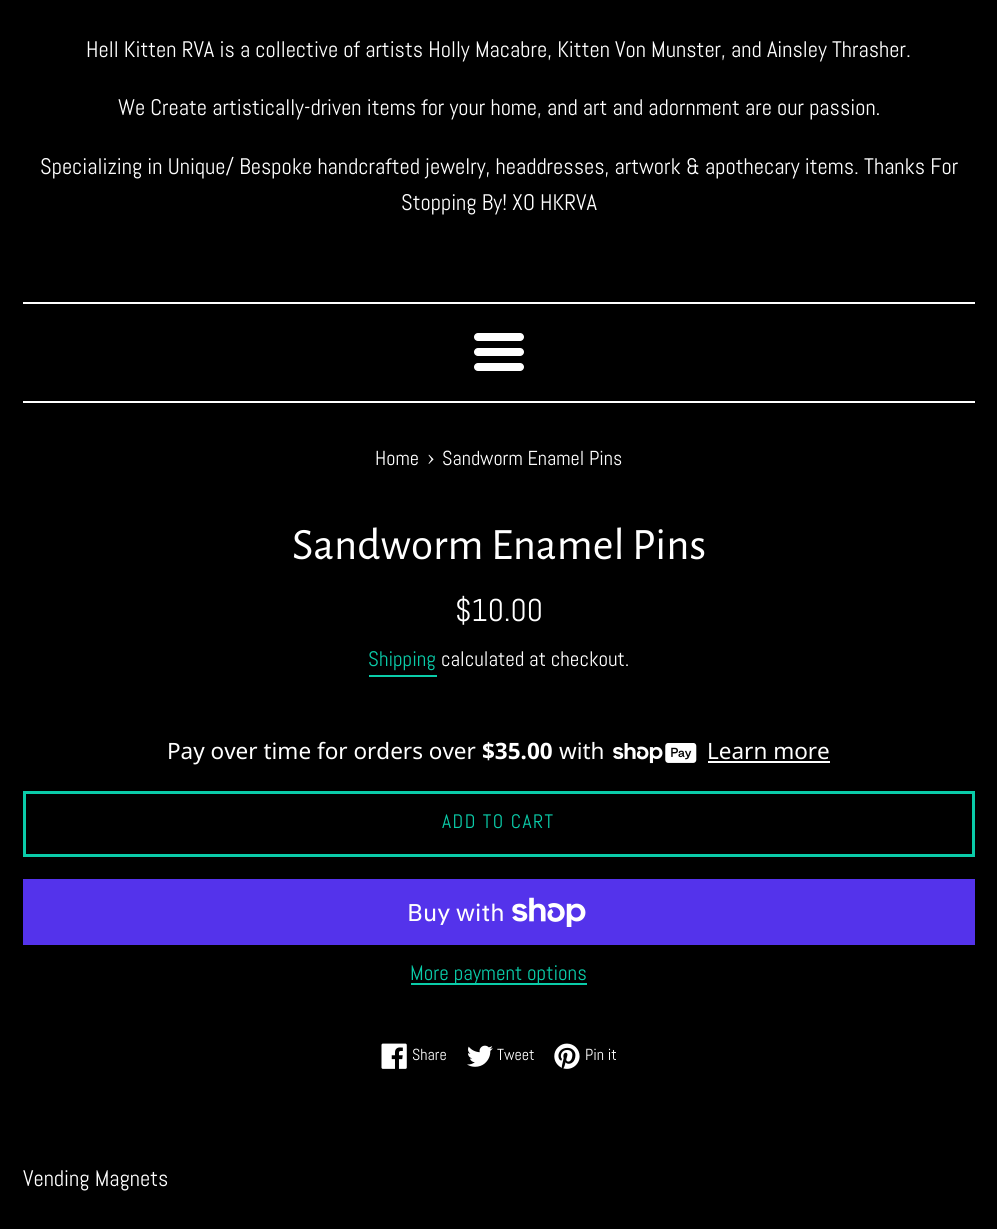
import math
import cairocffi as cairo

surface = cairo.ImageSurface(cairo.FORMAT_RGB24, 997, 1229)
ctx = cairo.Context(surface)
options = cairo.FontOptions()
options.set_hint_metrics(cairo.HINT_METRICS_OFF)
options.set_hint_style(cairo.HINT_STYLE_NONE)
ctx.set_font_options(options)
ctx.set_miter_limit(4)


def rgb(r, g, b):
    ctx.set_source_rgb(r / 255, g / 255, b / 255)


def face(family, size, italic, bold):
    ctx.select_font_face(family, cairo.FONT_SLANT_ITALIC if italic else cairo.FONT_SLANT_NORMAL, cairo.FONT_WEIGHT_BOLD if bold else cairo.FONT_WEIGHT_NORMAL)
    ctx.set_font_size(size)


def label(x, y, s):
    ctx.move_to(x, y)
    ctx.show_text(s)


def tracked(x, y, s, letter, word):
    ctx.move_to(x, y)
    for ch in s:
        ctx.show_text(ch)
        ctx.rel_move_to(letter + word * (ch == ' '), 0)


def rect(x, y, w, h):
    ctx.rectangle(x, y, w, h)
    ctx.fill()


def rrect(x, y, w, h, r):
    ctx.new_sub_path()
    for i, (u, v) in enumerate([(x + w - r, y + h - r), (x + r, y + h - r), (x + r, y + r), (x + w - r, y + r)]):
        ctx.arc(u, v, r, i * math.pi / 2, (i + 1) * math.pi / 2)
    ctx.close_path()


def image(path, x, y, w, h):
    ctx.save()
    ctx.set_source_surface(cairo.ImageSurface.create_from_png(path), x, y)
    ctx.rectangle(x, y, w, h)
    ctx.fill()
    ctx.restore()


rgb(0, 0, 0)
ctx.paint()
face('Abel', 22.5, 0, 0)
rgb(255, 255, 255)
label(86, 57, 'Hell Kitten RVA is a collective of artists Holly Macabre, Kitten Von Munster, and Ainsley Thrasher.')
label(118, 115, 'We Create artistically-driven items for your home, and art and adornment are our passion.')
label(40, 174, 'Specializing in Unique/ Bespoke handcrafted jewelry, headdresses, artwork & apothecary items. Thanks For')
label(401, 210, 'Stopping By! XO HKRVA')
rect(23, 302, 952, 2)
rrect(474, 333, 50, 8, 4)
ctx.fill()
rrect(474, 348, 50, 8, 4)
ctx.fill()
rrect(474, 363, 50, 8, 4)
ctx.fill()
rect(23, 401, 952, 2)
face('Abel', 20.25, 0, 0)
label(375, 465, 'Home')
face('Abel', 25, 0, 0)
label(427, 465, '›')
face('Abel', 20.25, 0, 0)
label(442, 465, 'Sandworm Enamel Pins')
face('Alegreya Sans', 45, 0, 0)
label(292, 559, 'Sandworm Enamel Pins')
face('Abel', 31.5, 0, 0)
label(455, 621, '$10.00')
face('Abel', 21, 0, 0)
rgb(10, 204, 169)
label(368, 666, 'Shipping')
rect(369, 675, 68, 2)
rgb(255, 255, 255)
label(441, 666, 'calculated at checkout.')
face('Noto Sans', 22.5, 0, 0)
label(167, 759, 'Pay over time for orders over')
face('Noto Sans', 22.5, 0, 1)
label(482, 759, '$35.00')
face('Noto Sans', 22.5, 0, 0)
label(559, 759, 'with')
image('image0.png', 613, 743, 84, 21)
label(707, 759, 'Learn more')
rect(708, 761, 122, 2)
ctx.rectangle(24.5, 792.5, 949, 63)
rgb(10, 204, 169)
ctx.set_line_width(3)
ctx.stroke()
face('Abel', 19.5, 0, 0)
tracked(442, 828, 'ADD TO CART', 1.5, 0)
rgb(84, 51, 235)
rect(23, 879, 952, 66)
face('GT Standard', 24, 0, 0)
rgb(255, 255, 255)
label(407, 921, 'Buy with')
image('image1.png', 512, 897, 74, 30)
rgb(10, 204, 169)
rect(411, 983, 176, 2)
face('Abel', 21, 0, 0)
label(410, 980, 'More payment options')
image('image2.png', 381, 1043, 26, 26)
face('Abel', 16, 0, 0)
rgb(255, 255, 255)
label(412, 1060, 'Share')
image('image3.png', 467, 1045, 26, 22)
label(497, 1060, 'Tweet')
image('image4.png', 554, 1043, 26, 26)
label(585, 1060, 'Pin it')
face('Abel', 22.5, 0, 0)
label(23, 1186, 'Vending Magnets')
surface.write_to_png('render.png')
